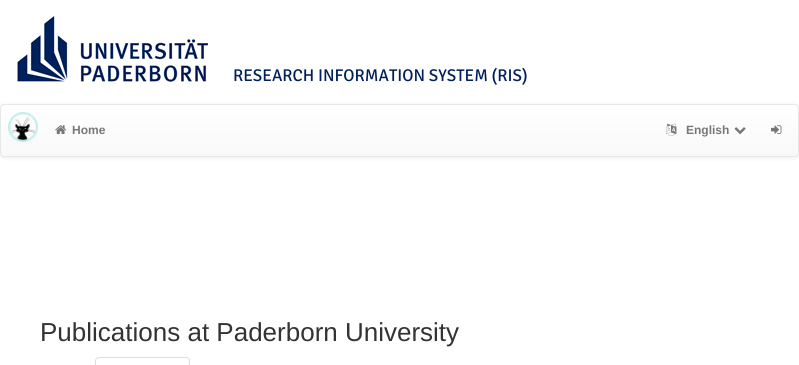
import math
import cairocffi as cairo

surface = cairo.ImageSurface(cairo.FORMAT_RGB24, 799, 365)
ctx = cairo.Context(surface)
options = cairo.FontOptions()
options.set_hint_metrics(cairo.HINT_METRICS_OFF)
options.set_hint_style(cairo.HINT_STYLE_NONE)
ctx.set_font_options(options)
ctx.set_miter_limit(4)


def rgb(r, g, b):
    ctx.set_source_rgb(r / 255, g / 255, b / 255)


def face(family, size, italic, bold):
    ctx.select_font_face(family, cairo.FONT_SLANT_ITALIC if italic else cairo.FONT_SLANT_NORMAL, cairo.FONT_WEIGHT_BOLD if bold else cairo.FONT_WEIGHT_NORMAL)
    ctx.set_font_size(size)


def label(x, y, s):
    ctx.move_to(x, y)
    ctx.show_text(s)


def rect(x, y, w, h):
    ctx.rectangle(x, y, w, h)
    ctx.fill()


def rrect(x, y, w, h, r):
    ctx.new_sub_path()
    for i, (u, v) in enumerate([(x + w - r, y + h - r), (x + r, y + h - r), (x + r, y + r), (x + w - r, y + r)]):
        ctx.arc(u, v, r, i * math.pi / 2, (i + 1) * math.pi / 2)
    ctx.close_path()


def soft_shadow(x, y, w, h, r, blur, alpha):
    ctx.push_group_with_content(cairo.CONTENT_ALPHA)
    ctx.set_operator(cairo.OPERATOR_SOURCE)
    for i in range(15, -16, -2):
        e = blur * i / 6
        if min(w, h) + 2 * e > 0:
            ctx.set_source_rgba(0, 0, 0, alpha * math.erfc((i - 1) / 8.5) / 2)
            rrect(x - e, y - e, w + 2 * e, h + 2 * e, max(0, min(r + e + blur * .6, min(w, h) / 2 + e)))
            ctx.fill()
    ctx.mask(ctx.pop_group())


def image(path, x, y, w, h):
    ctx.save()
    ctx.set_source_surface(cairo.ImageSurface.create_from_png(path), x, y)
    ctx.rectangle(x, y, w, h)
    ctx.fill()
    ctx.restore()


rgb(255, 255, 255)
ctx.paint()
image('image0.png', 17, 16, 191, 66)
face('Signika', 17, 0, 0)
rgb(0, 32, 91)
label(233, 81, 'RESEARCH INFORMATION SYSTEM (RIS)')
rgb(0, 0, 0)
soft_shadow(0, 105, 799, 53, 4, 2.5, 0.07)
ctx.save()
rrect(0, 104, 799, 53, 4)
ctx.clip()
gradient = cairo.LinearGradient(400, 105, 400, 156)
gradient.add_color_stop_rgba(0, 1, 1, 1, 1)
gradient.add_color_stop_rgba(1, 0.973, 0.973, 0.973, 1)
ctx.set_source(gradient)
rect(0, 105, 799, 51)
ctx.restore()
rrect(0.5, 104.5, 798, 52, 3.5)
rgb(231, 231, 231)
ctx.set_line_width(1)
ctx.stroke()
image('image1.png', 8, 112, 30, 30)
image('image2.png', 55, 125, 12, 9)
face('Liberation Sans', 12, 0, 1)
rgb(119, 119, 119)
label(72, 134, 'Home')
image('image3.png', 666, 123, 11, 13)
label(686, 134, 'English')
image('image4.png', 734, 127, 12, 8)
image('image5.png', 771, 125, 11, 9)
face('Liberation Sans', 26, 0, 0)
rgb(51, 51, 51)
label(40, 341, 'Publications at Paderborn University')
rgb(221, 221, 221)
ctx.new_path()
ctx.move_to(99, 357)
ctx.line_to(96, 358)
ctx.line_to(97, 359)
ctx.line_to(99, 358)
ctx.line_to(186, 358)
ctx.line_to(188, 359)
ctx.line_to(189, 358)
ctx.line_to(186, 357)
ctx.close_path()
ctx.fill()
ctx.new_path()
ctx.move_to(190, 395)
ctx.line_to(190, 361)
ctx.curve_to(190, 360, 189.5, 359, 189, 358)
ctx.line_to(188, 359)
ctx.curve_to(189, 359, 189, 360, 189, 361)
ctx.line_to(189, 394)
ctx.close_path()
ctx.fill()
ctx.new_path()
ctx.move_to(95, 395)
ctx.line_to(96, 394)
ctx.line_to(96, 361)
ctx.curve_to(96, 360, 96, 359, 97, 359)
ctx.line_to(96, 358)
ctx.curve_to(95.5, 359, 95, 360, 95, 361)
ctx.close_path()
ctx.fill()
surface.write_to_png('render.png')
